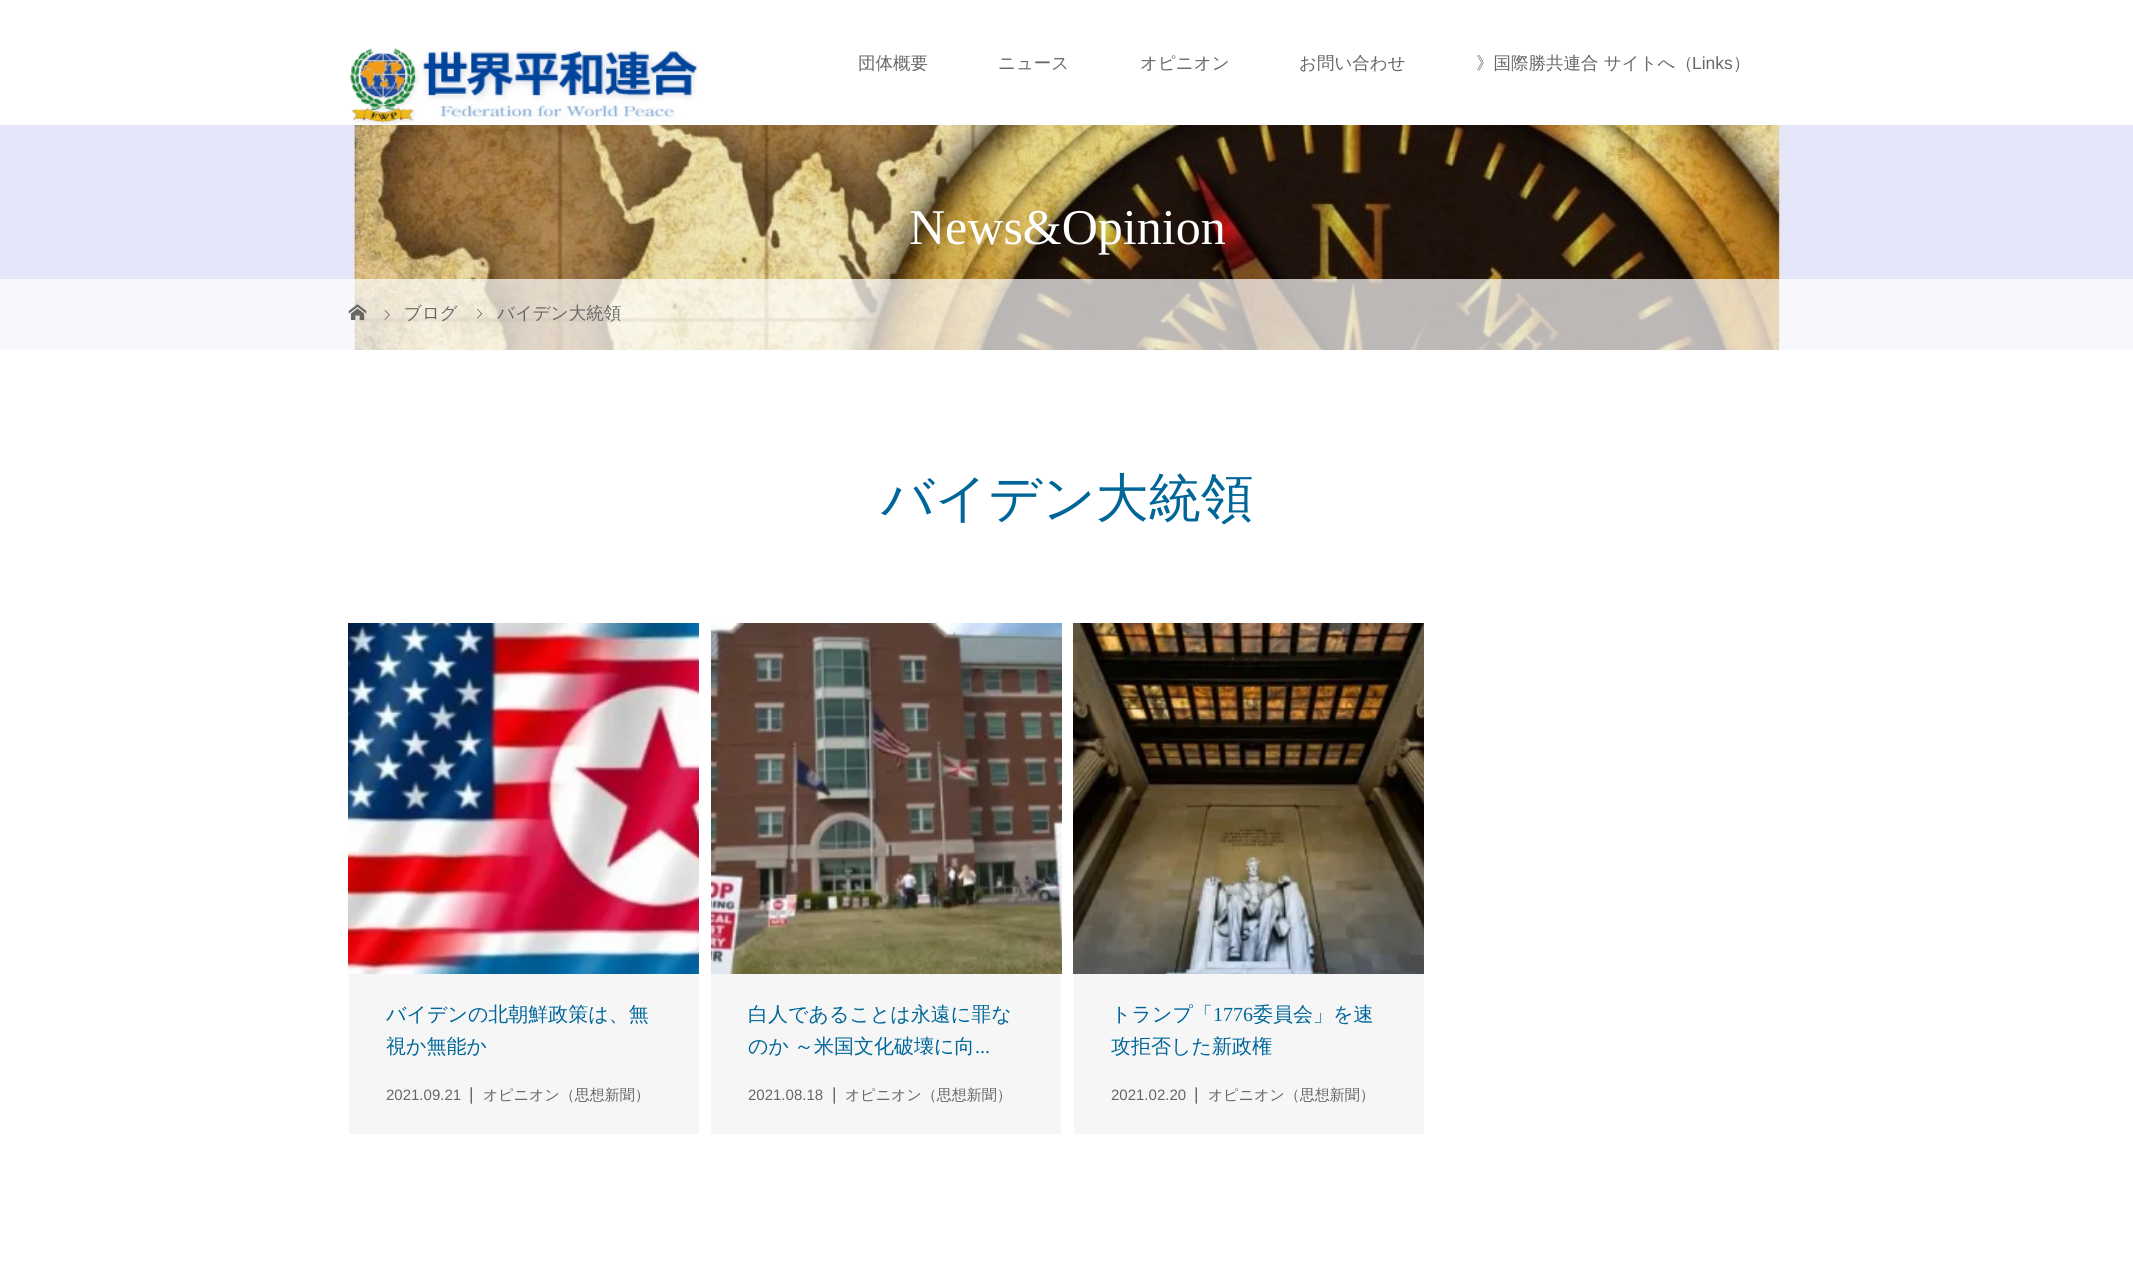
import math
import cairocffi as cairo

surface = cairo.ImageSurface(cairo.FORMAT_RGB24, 2133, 1262)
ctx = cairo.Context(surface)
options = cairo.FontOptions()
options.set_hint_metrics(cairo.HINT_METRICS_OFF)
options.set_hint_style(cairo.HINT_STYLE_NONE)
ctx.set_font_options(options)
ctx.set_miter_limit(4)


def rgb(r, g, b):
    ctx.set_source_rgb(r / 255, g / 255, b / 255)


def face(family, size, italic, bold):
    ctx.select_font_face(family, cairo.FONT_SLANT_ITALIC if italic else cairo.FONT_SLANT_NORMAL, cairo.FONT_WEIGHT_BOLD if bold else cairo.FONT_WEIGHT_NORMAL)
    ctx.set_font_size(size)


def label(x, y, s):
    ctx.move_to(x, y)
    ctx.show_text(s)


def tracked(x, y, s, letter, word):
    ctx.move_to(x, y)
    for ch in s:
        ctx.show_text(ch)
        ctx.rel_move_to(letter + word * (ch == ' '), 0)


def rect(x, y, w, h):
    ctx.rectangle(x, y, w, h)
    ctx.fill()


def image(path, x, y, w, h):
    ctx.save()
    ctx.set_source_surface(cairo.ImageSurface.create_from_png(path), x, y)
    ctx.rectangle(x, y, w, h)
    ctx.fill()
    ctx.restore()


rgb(255, 255, 255)
ctx.paint()
image('image1.png', 0, 125, 2133, 225)
image('image0.png', 349, 48, 349, 78)
face('WenQuanYi Zen Hei Medium', 17.5, 0, 0)
rgb(102, 102, 102)
label(858, 69, '団体概要')
label(998, 69, 'ニュース')
label(1140, 69, 'オピニオン')
label(1299, 69, 'お問い合わせ')
label(1476, 69, '》国際勝共連合 サイトへ（')
face('Liberation Sans', 17.5, 0, 0)
label(1692, 69, 'Links')
face('WenQuanYi Zen Hei Medium', 17.5, 0, 0)
label(1733, 69, '）')
face('Liberation Serif', 50, 0, 0)
rgb(255, 255, 255)
label(909, 244, 'News&Opinion')
ctx.set_source_rgba(1, 1, 1, 0.7)
rect(0, 279, 2133, 71)
image('image2.png', 348, 304, 19, 16)
image('image3.png', 384, 310, 6, 10)
face('WenQuanYi Zen Hei Medium', 17.5, 0, 0)
rgb(102, 102, 102)
label(404, 319, 'ブログ')
image('image4.png', 477, 308, 6, 11)
label(497, 319, 'バイデン大統領')
face('WenQuanYi Zen Hei Medium', 52.5, 0, 0)
rgb(0, 102, 153)
label(881, 516, 'バイデン大統領')
rgb(246, 246, 246)
rect(349, 974, 350, 160)
image('image5.png', 348, 623, 351, 351)
face('WenQuanYi Zen Hei Medium', 20, 0, 0)
rgb(0, 102, 153)
label(386, 1021, 'バイデンの北朝鮮政策は、無')
label(386, 1053, '視か無能か')
face('Liberation Sans', 15, 0, 0)
rgb(102, 102, 102)
label(386, 1100, '2021.09.21')
face('Liberation Sans', 17.5, 0, 0)
label(469, 1100, '|')
face('WenQuanYi Zen Hei Medium', 15, 0, 0)
label(483, 1100, 'オピニオン（思想新聞）')
rgb(246, 246, 246)
rect(711, 974, 350, 160)
image('image6.png', 711, 623, 351, 351)
face('WenQuanYi Zen Hei Medium', 20, 0, 0)
rgb(0, 102, 153)
label(748, 1021, '白人であることは永遠に罪な')
tracked(748, 1053, 'のか ～米国文化破壊に向', 0, -1)
face('Liberation Serif', 20, 0, 0)
label(975, 1053, '...')
face('Liberation Sans', 15, 0, 0)
rgb(102, 102, 102)
label(748, 1100, '2021.08.18')
face('Liberation Sans', 17.5, 0, 0)
label(832, 1100, '|')
face('WenQuanYi Zen Hei Medium', 15, 0, 0)
label(845, 1100, 'オピニオン（思想新聞）')
rgb(246, 246, 246)
rect(1074, 974, 350, 160)
image('image7.png', 1073, 623, 351, 351)
face('WenQuanYi Zen Hei Medium', 20, 0, 0)
rgb(0, 102, 153)
label(1111, 1021, 'トランプ「')
face('Liberation Serif', 20, 0, 0)
label(1213, 1021, '1776')
face('WenQuanYi Zen Hei Medium', 20, 0, 0)
label(1253, 1021, '委員会」を速')
label(1111, 1053, '攻拒否した新政権')
face('Liberation Sans', 15, 0, 0)
rgb(102, 102, 102)
label(1111, 1100, '2021.02.20')
face('Liberation Sans', 17.5, 0, 0)
label(1194, 1100, '|')
face('WenQuanYi Zen Hei Medium', 15, 0, 0)
label(1208, 1100, 'オピニオン（思想新聞）')
surface.write_to_png('render.png')
